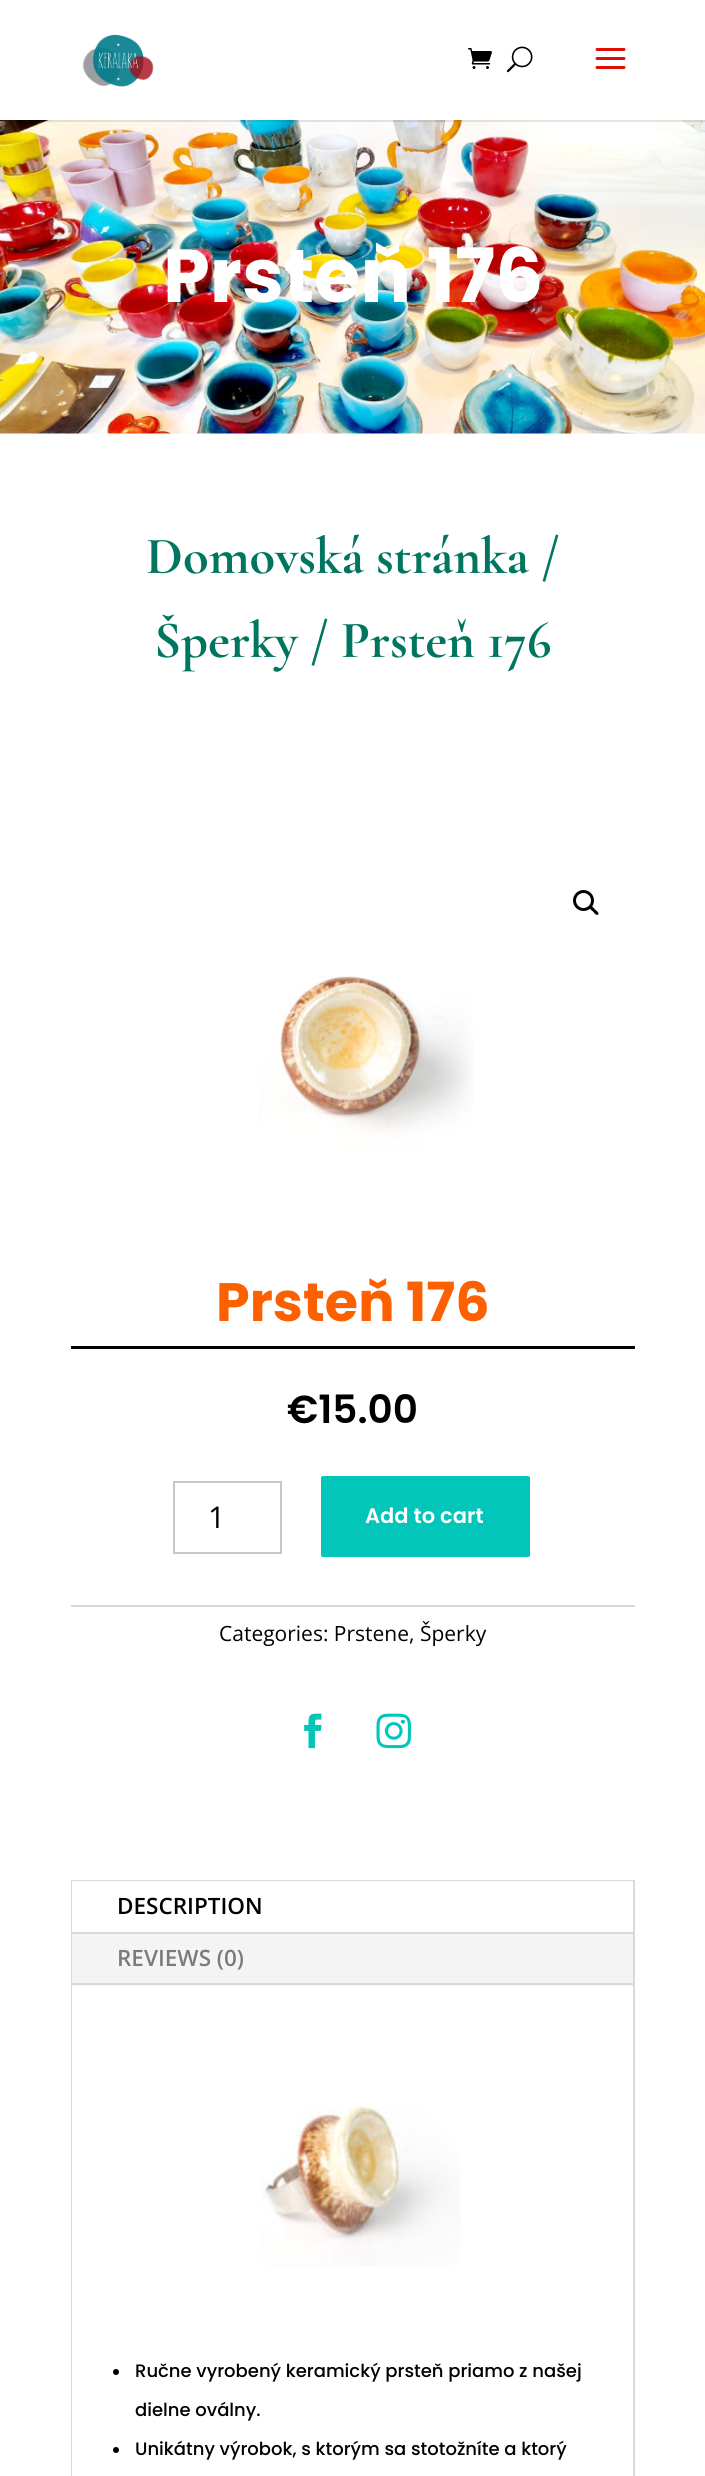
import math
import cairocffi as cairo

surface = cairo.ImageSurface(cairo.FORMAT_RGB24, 705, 2476)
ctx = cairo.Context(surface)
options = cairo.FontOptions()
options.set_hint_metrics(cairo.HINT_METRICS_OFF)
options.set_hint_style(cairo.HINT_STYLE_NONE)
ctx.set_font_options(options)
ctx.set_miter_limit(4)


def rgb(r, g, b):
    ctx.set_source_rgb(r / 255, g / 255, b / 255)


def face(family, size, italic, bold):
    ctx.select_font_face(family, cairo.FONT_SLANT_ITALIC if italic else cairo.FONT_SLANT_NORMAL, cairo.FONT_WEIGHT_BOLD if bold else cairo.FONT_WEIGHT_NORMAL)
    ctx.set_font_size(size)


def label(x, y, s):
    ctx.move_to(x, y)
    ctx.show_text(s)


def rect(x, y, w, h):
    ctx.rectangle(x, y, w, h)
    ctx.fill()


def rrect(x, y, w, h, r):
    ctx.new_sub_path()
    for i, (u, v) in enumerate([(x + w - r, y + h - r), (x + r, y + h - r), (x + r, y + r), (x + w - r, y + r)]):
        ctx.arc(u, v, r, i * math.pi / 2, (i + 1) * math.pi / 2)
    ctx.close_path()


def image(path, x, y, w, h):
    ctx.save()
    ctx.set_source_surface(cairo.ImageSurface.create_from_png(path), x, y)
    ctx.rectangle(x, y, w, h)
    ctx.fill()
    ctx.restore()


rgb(255, 255, 255)
ctx.paint()
image('image4.png', 0, 120, 705, 314)
ctx.set_source_rgba(0, 0, 0, 0.1)
rect(0, 120, 705, 2)
image('image0.png', 82, 34, 72, 53)
image('image1.png', 468, 48, 24, 21)
image('image2.png', 506, 46, 27, 27)
image('image3.png', 595, 48, 31, 21)
face('Poppins', 75, 0, 1)
rgb(255, 255, 255)
label(163, 302, 'Prsteň 176')
face('Cormorant Garamond Light', 52.5, 0, 0)
rgb(0, 117, 95)
label(146, 573, 'Domovská stránka /')
label(154, 657, 'Šperky / Prsteň 176')
ctx.new_path()
ctx.arc(583.5, 900.5, 9, 0, 2 * math.pi)
rgb(0, 0, 0)
ctx.set_line_width(3)
ctx.stroke()
ctx.new_path()
ctx.move_to(590, 906.5)
ctx.curve_to(591.5, 904.5, 594, 908.5, 595, 909.5)
ctx.curve_to(596, 910.5, 600, 913, 598, 914.5)
ctx.curve_to(596.5, 916.5, 594, 912.5, 593, 911.5)
ctx.curve_to(592, 910.5, 588, 908, 590, 906.5)
ctx.close_path()
ctx.fill()
image('image5.png', 259, 975, 214, 178)
rect(71, 1346, 564, 3)
face('Poppins', 54, 0, 1)
rgb(252, 96, 0)
label(216, 1321, 'Prsteň 176')
face('Poppins SemiBold', 39, 0, 0)
rgb(0, 0, 0)
label(287, 1423, '€15.00')
ctx.rectangle(174, 1482, 107, 71)
rgb(199, 199, 199)
ctx.set_line_width(2)
ctx.stroke()
face('Open Sans', 30, 0, 0)
rgb(0, 0, 0)
label(208, 1528, '1')
rgb(1, 198, 185)
rrect(319.5, 1474.5, 212, 84, 3.5)
ctx.fill_preserve()
rgb(255, 255, 255)
ctx.set_line_width(3)
ctx.stroke()
face('Poppins SemiBold', 21, 0, 0)
label(365, 1523, 'Add to cart')
rgb(218, 218, 218)
rect(71, 1605, 564, 2)
face('Open Sans', 21, 0, 0)
rgb(0, 0, 0)
label(219, 1641, 'Categories: Prstene, Šperky')
image('image6.png', 304, 1713, 18, 36)
image('image7.png', 376, 1713, 35, 36)
ctx.rectangle(72, 1881, 562, 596)
rgb(217, 217, 217)
ctx.set_line_width(2)
ctx.stroke()
rgb(244, 244, 244)
rect(72, 1934, 561, 52)
rgb(255, 255, 255)
rect(72, 1881, 561, 51)
rgb(217, 217, 217)
rect(72, 1932, 561, 2)
face('Open Sans SemiBold', 22.5, 0, 0)
rgb(0, 0, 0)
label(117, 1914, 'DESCRIPTION')
rgb(123, 123, 123)
label(117, 1966, 'REVIEWS (0)')
rgb(217, 217, 217)
rect(72, 1983, 561, 2)
rgb(255, 255, 255)
rect(72, 1986, 1, 490)
image('image8.png', 261, 2106, 200, 161)
rgb(0, 0, 0)
ctx.arc(116, 2372, 3, 0, 2 * math.pi)
ctx.fill()
face('Poppins Medium', 18, 0, 0)
label(135, 2377, 'Ručne vyrobený keramický prsteň priamo z našej')
label(135, 2416, 'dielne oválny.')
ctx.new_path()
ctx.arc(116, 2450, 3, 0, 2 * math.pi)
ctx.fill()
label(135, 2455, 'Unikátny výrobok, s ktorým sa stotožníte a ktorý')
surface.write_to_png('render.png')
